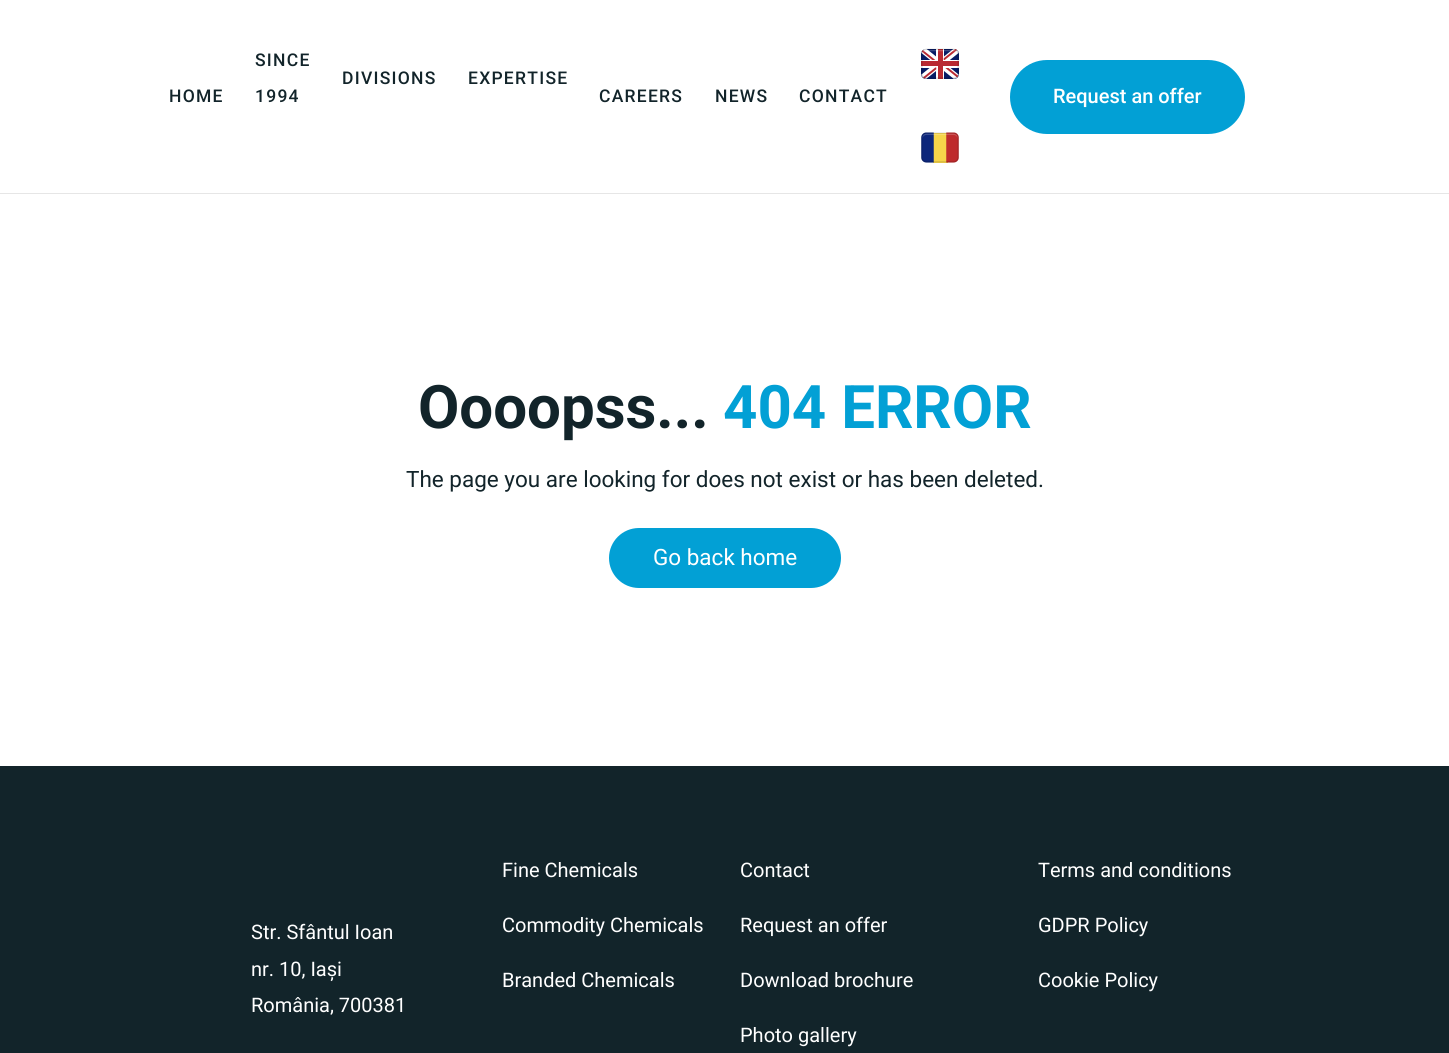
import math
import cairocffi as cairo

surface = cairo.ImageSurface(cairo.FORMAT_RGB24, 1449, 1053)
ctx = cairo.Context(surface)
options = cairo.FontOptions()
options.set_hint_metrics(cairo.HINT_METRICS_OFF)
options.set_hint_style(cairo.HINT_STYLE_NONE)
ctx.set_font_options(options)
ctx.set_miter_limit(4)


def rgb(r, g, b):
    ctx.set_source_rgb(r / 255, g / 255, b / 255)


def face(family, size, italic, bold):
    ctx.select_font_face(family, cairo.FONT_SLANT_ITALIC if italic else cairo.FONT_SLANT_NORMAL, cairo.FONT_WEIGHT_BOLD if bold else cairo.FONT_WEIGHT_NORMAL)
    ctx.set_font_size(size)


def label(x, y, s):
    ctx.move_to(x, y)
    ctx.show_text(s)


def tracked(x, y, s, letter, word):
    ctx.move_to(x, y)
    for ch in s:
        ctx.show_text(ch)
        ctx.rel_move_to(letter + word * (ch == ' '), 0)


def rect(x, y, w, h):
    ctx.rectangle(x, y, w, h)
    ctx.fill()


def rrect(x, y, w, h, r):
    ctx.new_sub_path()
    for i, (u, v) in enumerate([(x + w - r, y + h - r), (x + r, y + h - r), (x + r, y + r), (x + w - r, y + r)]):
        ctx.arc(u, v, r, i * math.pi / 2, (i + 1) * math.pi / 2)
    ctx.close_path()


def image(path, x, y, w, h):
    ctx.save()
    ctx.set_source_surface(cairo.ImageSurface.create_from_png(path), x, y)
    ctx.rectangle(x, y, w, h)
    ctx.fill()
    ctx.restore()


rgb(255, 255, 255)
ctx.paint()
rgb(230, 230, 230)
rect(0, 193, 1449, 1)
face('Roboto Medium', 17.5, 0, 0)
rgb(18, 36, 42)
tracked(255, 66, 'SINCE', 1.25, 0)
tracked(255, 102, '1994', 1.25, 0)
tracked(342, 84, 'DIVISIONS', 1.25, 0)
tracked(468, 84, 'EXPERTISE', 1.25, 0)
image('image0.png', 921, 48, 38, 31)
image('image1.png', 921, 132, 38, 31)
tracked(169, 102, 'HOME', 1.25, 0)
tracked(599, 102, 'CAREERS', 1.25, 0)
tracked(715, 102, 'NEWS', 1.25, 0)
tracked(799, 102, 'CONTACT', 1.25, 0)
rgb(2, 160, 213)
rrect(1010, 60, 235, 74, 37)
ctx.fill()
face('Roboto Medium', 20, 0, 0)
rgb(255, 255, 255)
label(1053, 103, 'Request an offer')
face('Roboto', 60, 0, 1)
rgb(18, 36, 42)
label(418, 428, 'Oooopss...')
rgb(2, 160, 213)
label(723, 428, '404 ERROR')
face('Roboto', 22.5, 0, 0)
rgb(18, 36, 42)
label(406, 487, 'The page you are looking for does not exist or has been deleted.')
rgb(2, 160, 213)
rrect(609, 528, 232, 60, 30)
ctx.fill()
rgb(255, 255, 255)
label(653, 565, 'Go back home')
rgb(18, 36, 42)
rect(0, 766, 1449, 287)
face('Roboto', 20, 0, 0)
rgb(255, 255, 255)
label(251, 939, 'Str. Sfântul Ioan')
label(251, 976, 'nr. 10, Iași')
label(251, 1012, 'România, 700381')
label(502, 877, 'Fine Chemicals')
label(502, 932, 'Commodity Chemicals')
label(502, 987, 'Branded Chemicals')
label(740, 877, 'Contact')
label(740, 932, 'Request an offer')
label(740, 987, 'Download brochure')
label(740, 1042, 'Photo gallery')
label(1038, 877, 'Terms and conditions')
label(1038, 932, 'GDPR Policy')
label(1038, 987, 'Cookie Policy')
surface.write_to_png('render.png')
